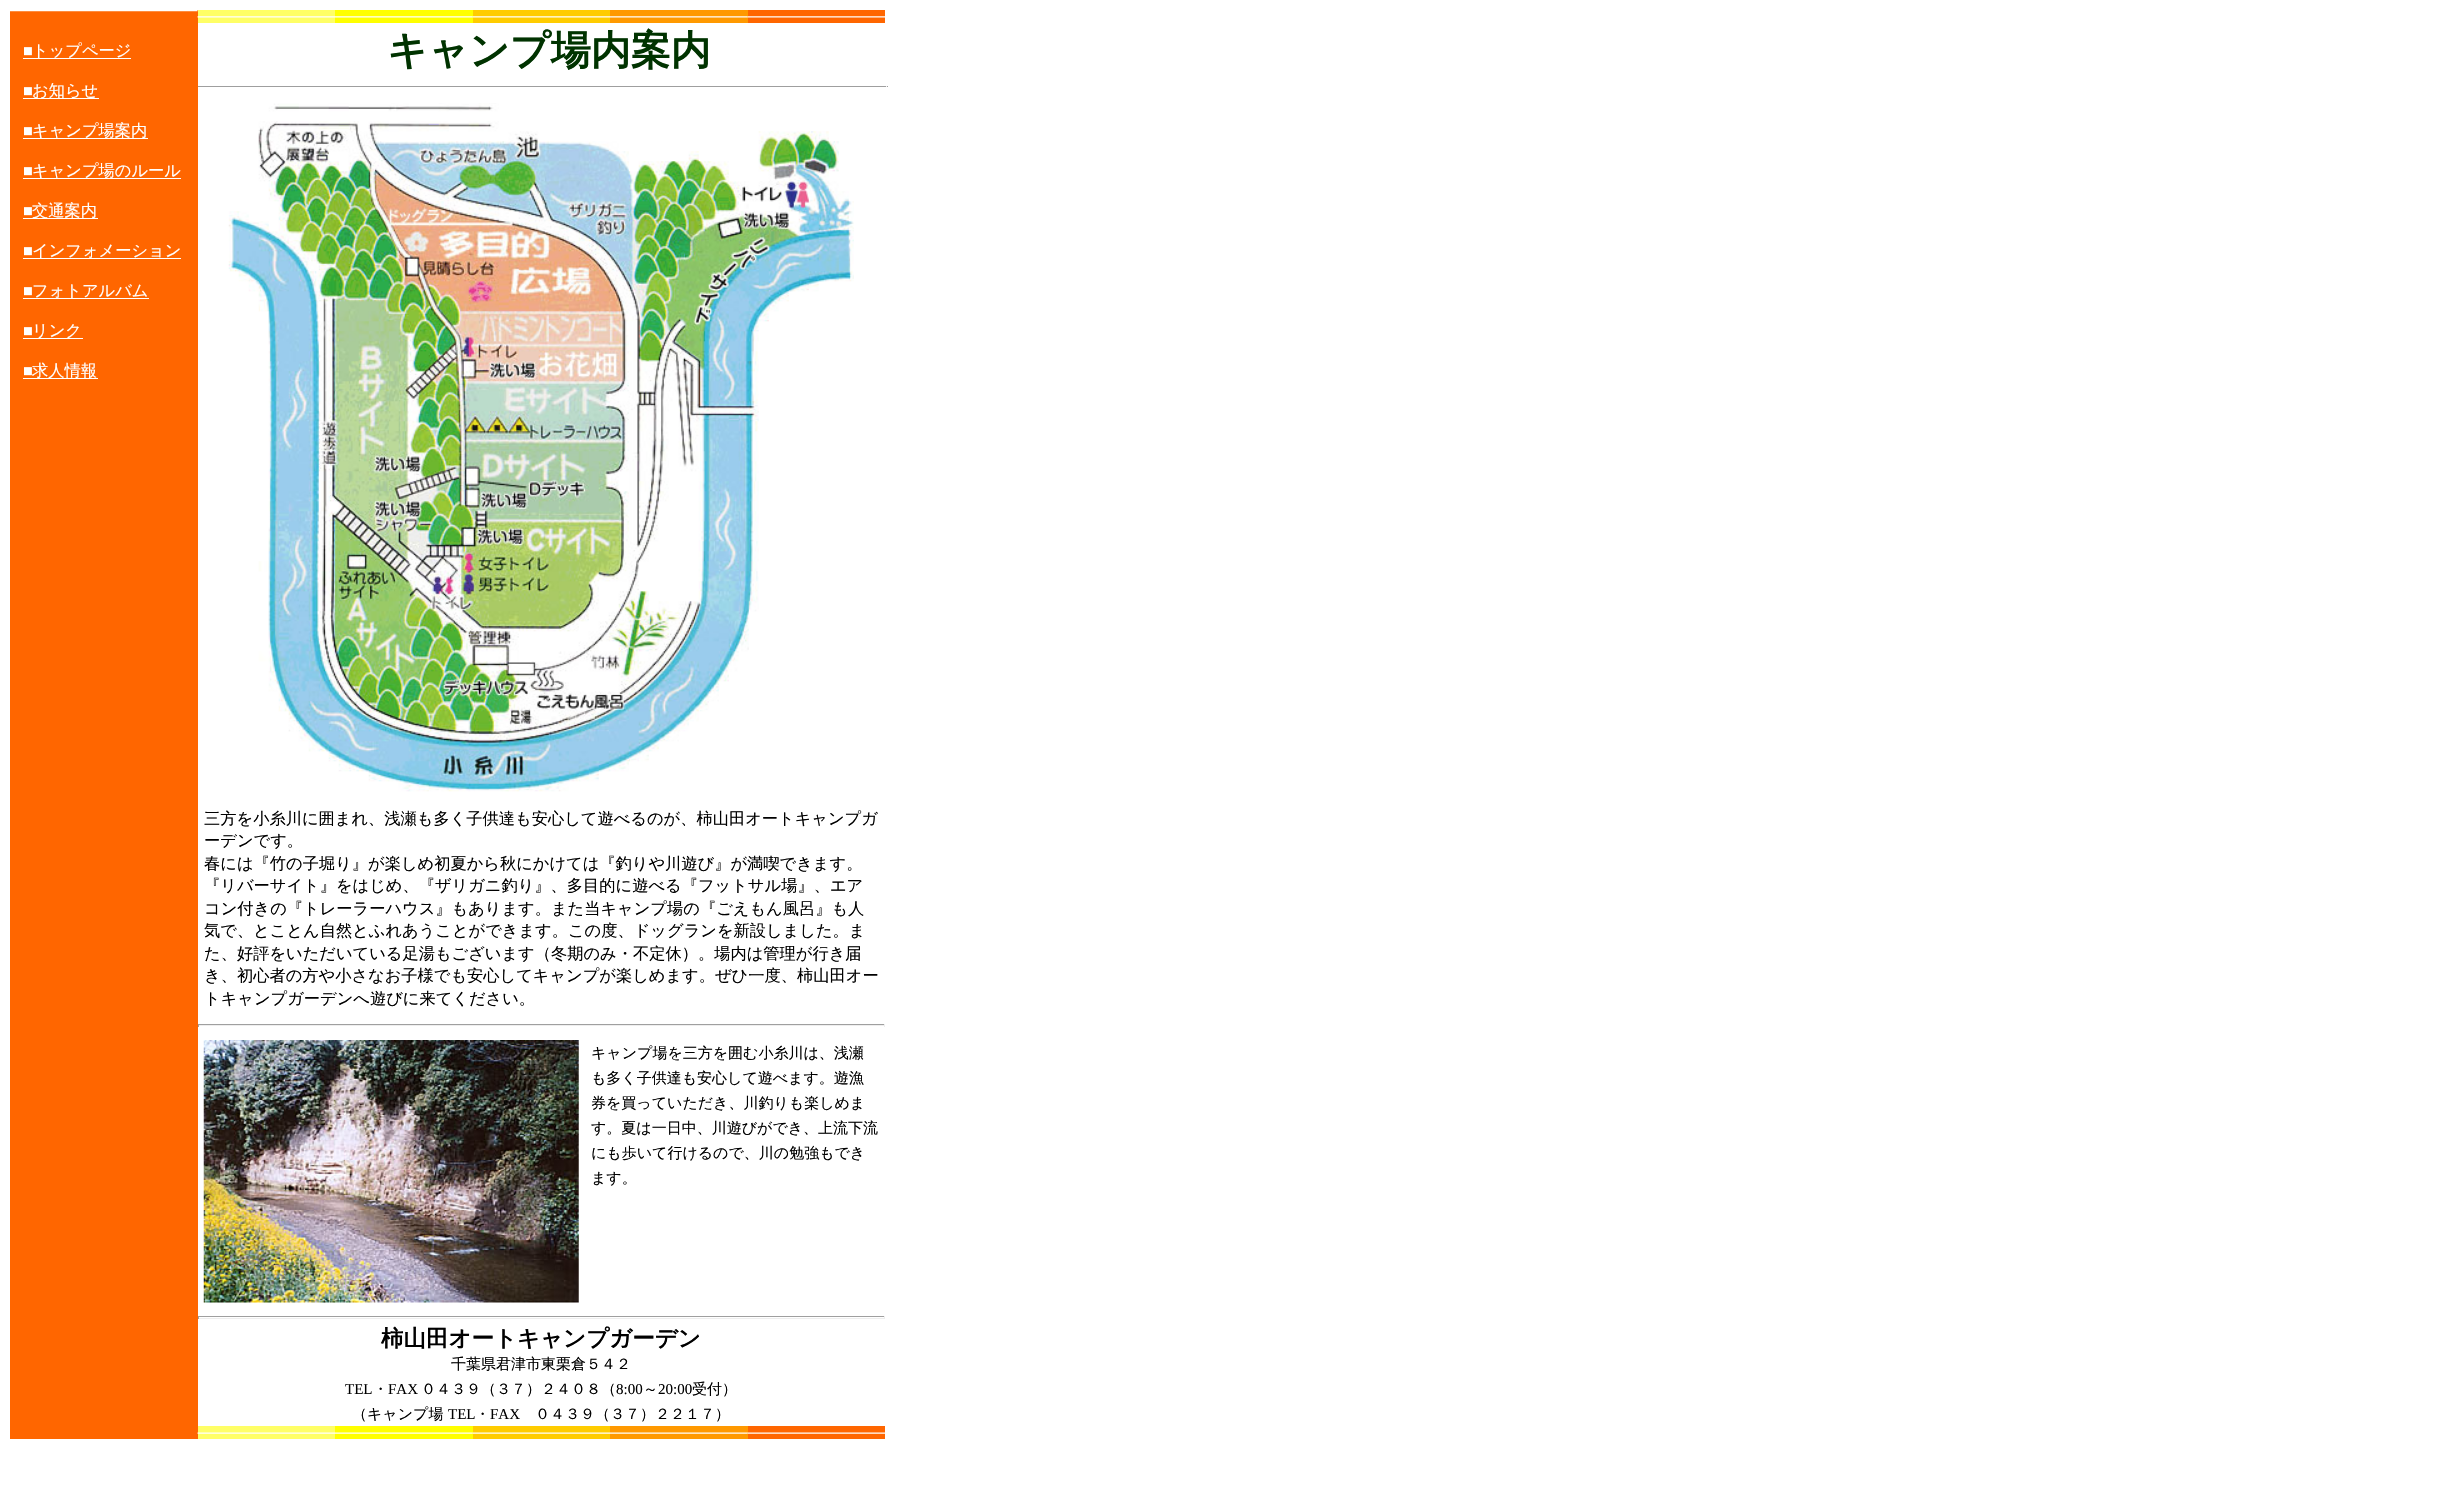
void draw(SkCanvas* canvas) {
  SkPaint paint;
  paint.setAntiAlias(true);
  auto face = [&](const char* family, int weight, float size, bool italic = false) {
    SkFontStyle style(weight, SkFontStyle::kNormal_Width,
      italic ? SkFontStyle::kItalic_Slant : SkFontStyle::kUpright_Slant);
    SkFont result(fontMgr->matchFamilyStyle(family, style), size);
    result.setSubpixel(true);
    return result;
  };
  auto paste = [&](const char* path, float x, float y, float w, float h) {
    auto image = SkImages::DeferredFromEncodedData(SkData::MakeFromFileName(path));
    canvas->drawImageRect(image, SkRect::MakeXYWH(x, y, w, h), SkSamplingOptions());
  };
  canvas->clear(0xffffffff);
  paint.setColor(0xffff6600);
  canvas->drawRect(SkRect::MakeXYWH(10, 10, 188, 1429), paint);
  paste("img/1.png", 10, 10, 188, 2);
  {
    const struct { float x, y, w, h; SkColor color; } items[] = {
      {23, 58, 108, 1, 0xffffffff},
      {23, 98, 76, 1, 0xffffffff},
      {23, 138, 125, 1, 0xffffffff},
      {23, 178, 158, 1, 0xffffffff},
      {23, 218, 75, 1, 0xffffffff},
      {23, 258, 158, 1, 0xffffffff},
      {23, 298, 126, 1, 0xffffffff},
      {23, 338, 60, 1, 0xffffffff},
      {23, 378, 75, 1, 0xffffffff},
      {748, 10, 137, 13, 0xffff6600},
      {198, 10, 137, 13, 0xffffff66},
    };
    for (auto [x, y, w, h, color] : items) {
      paint.setColor(color);
      canvas->drawRect(SkRect::MakeXYWH(x, y, w, h), paint);
    }
  }
  paste("img/2.png", 197, 16, 138, 2);
  paint.setColor(0xffffff00);
  canvas->drawRect(SkRect::MakeXYWH(335, 10, 138, 13), paint);
  paste("img/3.png", 335, 16, 138, 2);
  paint.setColor(0xffffcc00);
  canvas->drawRect(SkRect::MakeXYWH(473, 10, 137, 13), paint);
  paste("img/4.png", 472, 16, 138, 2);
  paint.setColor(0xffff9900);
  canvas->drawRect(SkRect::MakeXYWH(610, 10, 138, 13), paint);
  paste("img/5.png", 610, 16, 138, 2);
  paste("img/6.png", 747, 16, 138, 2);
  paint.setColor(0xff9f9f9f);
  canvas->drawRect(SkRect::MakeXYWH(198, 86, 690, 1), paint);
  paint.setColor(0xffeeeeee);
  canvas->drawRect(SkRect::MakeXYWH(886, 86, 1, 1), paint);
  paste("img/7.png", 228, 103, 626, 689);
  {
    const struct { float x, y, w, h; SkColor color; } items[] = {
      {198, 1024, 687, 1, 0xff9f9f9f},
      {884, 1024, 1, 3, 0xffeeeeee},
      {198, 1025, 687, 1, 0xffeeeeee},
      {198, 1024, 1, 3, 0xff9f9f9f},
    };
    for (auto [x, y, w, h, color] : items) {
      paint.setColor(color);
      canvas->drawRect(SkRect::MakeXYWH(x, y, w, h), paint);
    }
  }
  paste("img/8.png", 203, 1040, 376, 263);
  {
    const struct { float x, y, w, h; SkColor color; } items[] = {
      {198, 1316, 687, 1, 0xff9f9f9f},
      {884, 1316, 1, 3, 0xffeeeeee},
      {198, 1318, 687, 1, 0xffeeeeee},
      {198, 1316, 1, 3, 0xff9f9f9f},
      {748, 1426, 137, 13, 0xffff6600},
      {198, 1426, 137, 13, 0xffffff66},
    };
    for (auto [x, y, w, h, color] : items) {
      paint.setColor(color);
      canvas->drawRect(SkRect::MakeXYWH(x, y, w, h), paint);
    }
  }
  paste("img/9.png", 197, 1432, 138, 2);
  paint.setColor(0xffffff00);
  canvas->drawRect(SkRect::MakeXYWH(335, 1426, 138, 13), paint);
  paste("img/10.png", 335, 1432, 138, 2);
  paint.setColor(0xffffcc00);
  canvas->drawRect(SkRect::MakeXYWH(473, 1426, 137, 13), paint);
  paste("img/11.png", 472, 1432, 138, 2);
  paint.setColor(0xffff9900);
  canvas->drawRect(SkRect::MakeXYWH(610, 1426, 138, 13), paint);
  paste("img/12.png", 610, 1432, 138, 2);
  paste("img/13.png", 747, 1432, 138, 2);
  auto f0 = face("Liberation Serif", 400, 16.25f);
  paint.setColor(0xffffffff);
  canvas->drawString("■", 23, 56, f0, paint);
  auto f1 = face("WenQuanYi Zen Hei", 500, 16.25f);
  canvas->drawString("トップページ", 32, 56, f1, paint);
  canvas->drawString("■", 23, 96, f0, paint);
  canvas->drawString("お知らせ", 32, 96, f1, paint);
  canvas->drawString("■", 23, 136, f0, paint);
  canvas->drawString("キャンプ場案内", 32, 136, f1, paint);
  canvas->drawString("■", 23, 176, f0, paint);
  canvas->drawString("キャンプ場のルール", 32, 176, f1, paint);
  canvas->drawString("■", 23, 216, f0, paint);
  canvas->drawString("交通案内", 32, 216, f1, paint);
  canvas->drawString("■", 23, 256, f0, paint);
  canvas->drawString("インフォメーション", 32, 256, f1, paint);
  canvas->drawString("■", 23, 296, f0, paint);
  canvas->drawString("フォトアルバム", 32, 296, f1, paint);
  canvas->drawString("■", 23, 336, f0, paint);
  canvas->drawString("リンク", 32, 336, f1, paint);
  canvas->drawString("■", 23, 376, f0, paint);
  canvas->drawString("求人情報", 32, 376, f1, paint);
  auto f2 = face("WenQuanYi Zen Hei", 700, 40);
  paint.setColor(0xff003300);
  canvas->drawString("キャンプ場内案内", 387, 64, f2, paint);
  paint.setColor(0xff000000);
  {
    const struct { const char* s; float x, y; } items[] = {
      {"三方を小糸川に囲まれ、浅瀬も多く子供達も安心して遊べるのが、柿山田オートキャンプガ", 204, 824},
      {"ーデンです。", 204, 846},
      {"春には『竹の子堀り』が楽しめ初夏から秋にかけては『釣りや川遊び』が満喫できます。", 204, 869},
      {"『リバーサイト』をはじめ、『ザリガニ釣り』、多目的に遊べる『フットサル場』、エア", 204, 891},
      {"コン付きの『トレーラーハウス』もあります。また当キャンプ場の『ごえもん風呂』も人", 204, 914},
      {"気で、とことん自然とふれあうことができます。この度、ドッグランを新設しました。ま", 204, 936},
      {"た、好評をいただいている足湯もございます（冬期のみ・不定休）。場内は管理が行き届", 204, 959},
      {"き、初心者の方や小さなお子様でも安心してキャンプが楽しめます。ぜひ一度、柿山田オー", 204, 981},
      {"トキャンプガーデンへ遊びに来てください。", 204, 1004},
    };
    for (auto [s, x, y] : items) {
      canvas->drawString(s, x, y, f1, paint);
    }
  }
  auto f3 = face("WenQuanYi Zen Hei", 500, 15);
  {
    const struct { const char* s; float x, y; } items[] = {
      {"キャンプ場を三方を囲む小糸川は、浅瀬", 591, 1058},
      {"も多く子供達も安心して遊べます。遊漁", 591, 1083},
      {"券を買っていただき、川釣りも楽しめま", 591, 1108},
      {"す。夏は一日中、川遊びができ、上流下流", 591, 1133},
      {"にも歩いて行けるので、川の勉強もでき", 591, 1158},
      {"ます。", 591, 1183},
    };
    for (auto [s, x, y] : items) {
      canvas->drawString(s, x, y, f3, paint);
    }
  }
  auto f4 = face("WenQuanYi Zen Hei", 700, 22.5f);
  canvas->drawString("柿山田オートキャンプガーデン", 381, 1346, f4, paint);
  canvas->drawString("千葉県君津市東栗倉５４２", 451, 1369, f3, paint);
  auto f5 = face("Liberation Serif", 400, 15);
  canvas->drawString("TEL", 345, 1394, f5, paint);
  canvas->drawString("・", 373, 1394, f3, paint);
  canvas->drawString("FAX", 388, 1394, f5, paint);
  canvas->drawString("０４３９（３７）２４０８（", 421, 1394, f3, paint);
  canvas->drawString("8:00", 616, 1394, f5, paint);
  canvas->drawString("～", 643, 1394, f3, paint);
  canvas->drawString("20:00", 658, 1394, f5, paint);
  canvas->drawString("受付）", 692, 1394, f3, paint);
  canvas->drawString("（キャンプ場", 352, 1419, f3, paint);
  canvas->drawString("TEL", 448, 1419, f5, paint);
  canvas->drawString("・", 475, 1419, f3, paint);
  canvas->drawString("FAX", 490, 1419, f5, paint);
  canvas->drawString("０４３９（３７）２２１７）", 535, 1419, f3, paint);
}
